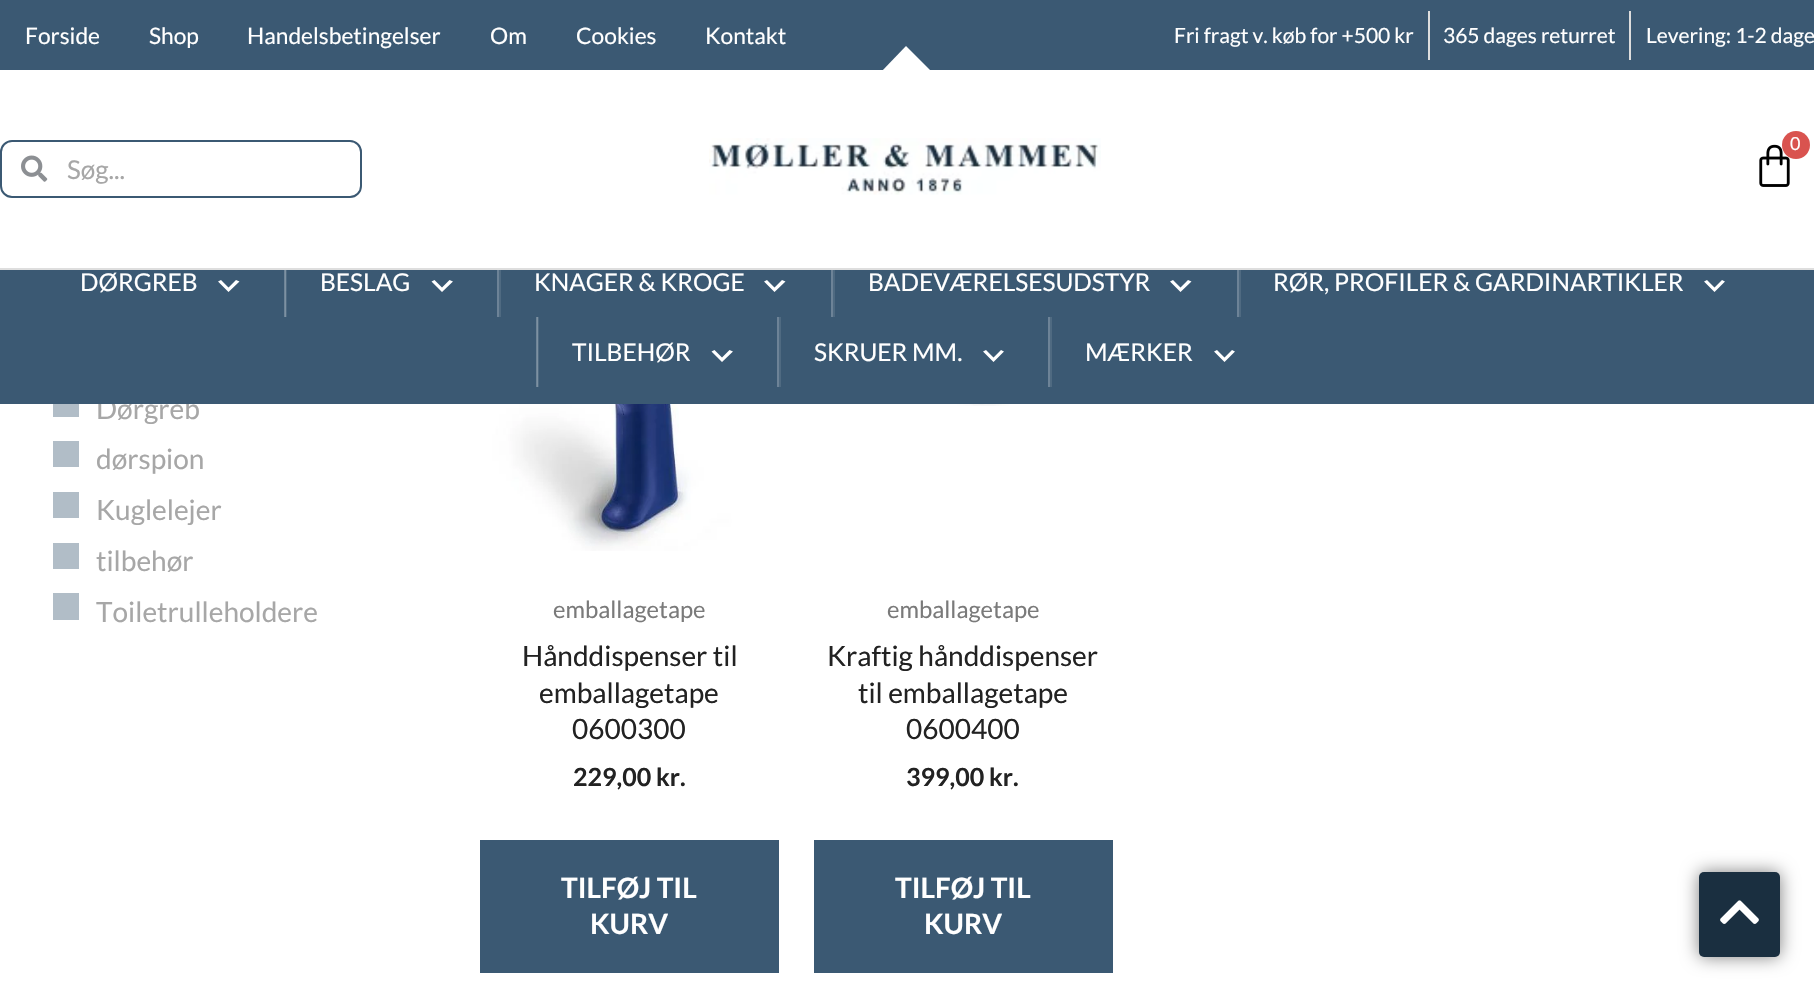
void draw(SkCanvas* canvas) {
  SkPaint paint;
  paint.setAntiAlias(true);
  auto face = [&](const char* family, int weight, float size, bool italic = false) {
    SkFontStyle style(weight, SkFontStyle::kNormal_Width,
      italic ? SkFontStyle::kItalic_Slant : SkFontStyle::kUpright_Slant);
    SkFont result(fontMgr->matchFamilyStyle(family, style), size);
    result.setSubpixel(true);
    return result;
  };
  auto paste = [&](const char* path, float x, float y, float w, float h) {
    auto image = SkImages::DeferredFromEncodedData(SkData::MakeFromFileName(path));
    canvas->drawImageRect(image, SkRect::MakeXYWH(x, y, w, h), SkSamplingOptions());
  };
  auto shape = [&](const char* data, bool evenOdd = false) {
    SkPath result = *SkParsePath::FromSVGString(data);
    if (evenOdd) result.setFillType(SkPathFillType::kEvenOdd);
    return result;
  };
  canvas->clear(0xffffffff);
  {
    const struct { float x, y, w, h; SkColor color; } items[] = {
      {0, 0, 1814, 70, 0xff3b5973},
      {1428, 11, 2, 49, 0xffdddddd},
      {1629, 11, 2, 49, 0xffdddddd},
    };
    for (auto [x, y, w, h, color] : items) {
      paint.setColor(color);
      canvas->drawRect(SkRect::MakeXYWH(x, y, w, h), paint);
    }
  }
  paint.setColor(0xffffffff);
  canvas->drawPath(shape("M906 46L932 72H881Z"), paint);
  paint.setColor(0xffdedede);
  canvas->drawRect(SkRect::MakeXYWH(0, 268, 1814, 2), paint);
  paint.setStroke(true);
  paint.setStrokeWidth(2);
  paint.setColor(0xff3b5973);
  canvas->drawRoundRect(SkRect::MakeXYWH(1, 141, 360, 56), 11, 11, paint);
  paste("img/1.png", 21, 155, 27, 27);
  paste("img/2.png", 709, 138, 392, 57);
  paste("img/3.png", 1759, 144, 31, 43);
  paint.setStroke(false);
  paint.setColor(0xffd9534f);
  canvas->drawCircle(1796, 145, 14, paint);
  {
    const struct { float x, y, w, h; SkColor color; } items[] = {
      {53, 404, 26, 13, 0xffb1bdc7},
      {53, 441, 26, 26, 0xffb1bdc7},
      {53, 492, 26, 26, 0xffb1bdc7},
      {53, 543, 26, 26, 0xffb1bdc7},
      {53, 593, 26, 27, 0xffb1bdc7},
    };
    for (auto [x, y, w, h, color] : items) {
      paint.setColor(color);
      canvas->drawRect(SkRect::MakeXYWH(x, y, w, h), paint);
    }
  }
  paste("img/4.png", 480, 404, 299, 147);
  paint.setColor(0xff3b5973);
  canvas->drawRect(SkRect::MakeXYWH(480, 840, 299, 133), paint);
  paste("img/5.png", 814, 404, 299, 2);
  canvas->drawRect(SkRect::MakeXYWH(814, 840, 299, 133), paint);
  paint.setColor(0x80000000);
  paint.setMaskFilter(SkMaskFilter::MakeBlur(kNormal_SkBlurStyle, 9));
  canvas->drawRoundRect(SkRect::MakeXYWH(1699, 872, 81, 85), 5, 5, paint);
  paint.setMaskFilter(nullptr);
  paint.setColor(0xff1a2f40);
  canvas->drawRoundRect(SkRect::MakeXYWH(1699, 872, 81, 85), 5, 5, paint);
  paste("img/6.png", 1720, 900, 39, 24);
  auto f0 = face("Lato", 400, 22.75f);
  paint.setColor(0xffffffff);
  {
    const struct { const char* s; float x, y; } items[] = {
      {"Forside", 25, 44},
      {"Shop", 149, 44},
      {"Handelsbetingelser", 247, 44},
      {"Om", 490, 44},
      {"Cookies", 576, 44},
      {"Kontakt", 705, 44},
    };
    for (auto [s, x, y] : items) {
      canvas->drawString(s, x, y, f0, paint);
    }
  }
  auto f1 = face("Lato", 400, 21);
  {
    const struct { const char* s; float x, y; } items[] = {
      {"Fri fragt v. køb for +500 kr", 1174, 43},
      {"365 dages returret", 1443, 43},
      {"Levering: 1-2 dage", 1646, 43},
    };
    for (auto [s, x, y] : items) {
      canvas->drawString(s, x, y, f1, paint);
    }
  }
  auto f2 = face("Lato", 400, 26);
  paint.setColor(0xffa7a7a7);
  canvas->drawString("Søg...", 67, 179, f2, paint);
  auto f3 = face("Lato", 400, 18);
  paint.setColor(0xffffffff);
  canvas->drawString("0", 1790, 150, f3, paint);
  auto f4 = face("Lato", 400, 28);
  paint.setColor(0xffa7a7a7);
  canvas->drawString("Dørgreb", 96, 419, f4, paint);
  paint.setColor(0xff3b5973);
  canvas->drawRect(SkRect::MakeXYWH(0, 270, 1814, 134), paint);
  paint.setColor(0xffffffff);
  canvas->drawPath(shape("M1217 350L1224.5 357.5L1232 350L1235 351.5L1224.5 362L1214 351.5Z"), paint);
  auto f5 = face("Lato", 400, 24.5f);
  canvas->drawString("MÆRKER", 1085, 361, f5, paint);
  canvas->drawPath(shape("M986 350L993.5 357.5L1001 350L1004 351.5L993.5 362L983 351.5Z"), paint);
  canvas->drawString("SKRUER MM.", 814, 361, f5, paint);
  canvas->drawPath(shape("M714.5 350L722 357.5L729.5 350L733 351.5L722 362L711.5 351.5Z"), paint);
  canvas->drawString("TILBEHØR", 572, 361, f5, paint);
  canvas->drawPath(shape("M1707 280L1714.5 287.5L1722 280L1725 281.5L1714.5 292L1704 281.5Z"), paint);
  canvas->drawString("RØR, PROFILER & GARDINARTIKLER", 1273, 291, f5, paint);
  canvas->drawPath(shape("M1173 280L1180.5 287.5L1188 280L1191.5 281.5L1180.5 292L1170 281.5Z"), paint);
  canvas->drawString("BADEVÆRELSESUDSTYR", 868, 291, f5, paint);
  canvas->drawPath(shape("M767 280L774.5 287.5L782 280L785.5 281.5L774.5 292L764 281.5Z"), paint);
  canvas->drawString("KNAGER & KROGE", 534, 291, f5, paint);
  canvas->drawPath(shape("M434.5 280L442 287.5L449.5 280L453 281.5L442 292L431.5 281.5Z"), paint);
  canvas->drawString("BESLAG", 320, 291, f5, paint);
  canvas->drawPath(shape("M221 280L228.5 287.5L236 280L239.5 281.5L228.5 292L218 281.5Z"), paint);
  canvas->drawString("DØRGREB", 80, 291, f5, paint);
  {
    const struct { float x, y, w, h; SkColor color; } items[] = {
      {1048, 317, 2, 70, 0xff6d8397},
      {1050, 317, 2, 70, 0xff4f6a81},
      {777, 317, 2, 70, 0xff6d8397},
      {779, 317, 2, 70, 0xff4f6a81},
      {537, 317, 2, 70, 0xff4f6a81},
      {536, 317, 2, 70, 0x42ffffff},
      {1237, 270, 2, 47, 0xff6d8397},
      {1239, 270, 2, 47, 0xff4f6a81},
      {831, 270, 2, 47, 0xff6d8397},
      {833, 270, 2, 47, 0xff4f6a81},
      {497, 270, 2, 47, 0xff6d8397},
      {499, 270, 2, 47, 0xff4f6a81},
      {285, 270, 1, 47, 0xff7d91a2},
      {286, 270, 1, 47, 0xff4f6a81},
      {284, 270, 1, 47, 0xff6e8497},
    };
    for (auto [x, y, w, h, color] : items) {
      paint.setColor(color);
      canvas->drawRect(SkRect::MakeXYWH(x, y, w, h), paint);
    }
  }
  paint.setColor(0xffa7a7a7);
  {
    const struct { const char* s; float x, y; } items[] = {
      {"dørspion", 96, 469},
      {"Kuglelejer", 96, 520},
      {"tilbehør", 96, 571},
      {"Toiletrulleholdere", 96, 622},
    };
    for (auto [s, x, y] : items) {
      canvas->drawString(s, x, y, f4, paint);
    }
  }
  auto f6 = face("Lato", 400, 23.75f);
  paint.setColor(0xff7a7a7a);
  canvas->drawString("emballagetape", 553, 618, f6, paint);
  paint.setColor(0xff222222);
  {
    const struct { const char* s; float x, y; } items[] = {
      {"Hånddispenser til", 522, 666},
      {"emballagetape", 539, 703},
      {"0600300", 572, 739},
    };
    for (auto [s, x, y] : items) {
      canvas->drawString(s, x, y, f4, paint);
    }
  }
  auto f7 = face("Lato", 700, 25);
  canvas->drawString("229,00 kr.", 573, 786, f7, paint);
  auto f8 = face("Lato", 700, 28);
  paint.setColor(0xffffffff);
  canvas->drawString("TILFØJ TIL", 561, 898, f8, paint);
  canvas->drawString("KURV", 590, 934, f8, paint);
  paint.setColor(0xff7a7a7a);
  canvas->drawString("emballagetape", 887, 618, f6, paint);
  paint.setColor(0xff222222);
  {
    const struct { const char* s; float x, y; } items[] = {
      {"Kraftig hånddispenser", 827, 666},
      {"til emballagetape", 858, 703},
      {"0600400", 906, 739},
    };
    for (auto [s, x, y] : items) {
      canvas->drawString(s, x, y, f4, paint);
    }
  }
  canvas->drawString("399,00 kr.", 906, 786, f7, paint);
  paint.setColor(0xffffffff);
  canvas->drawString("TILFØJ TIL", 895, 898, f8, paint);
  canvas->drawString("KURV", 924, 934, f8, paint);
}
